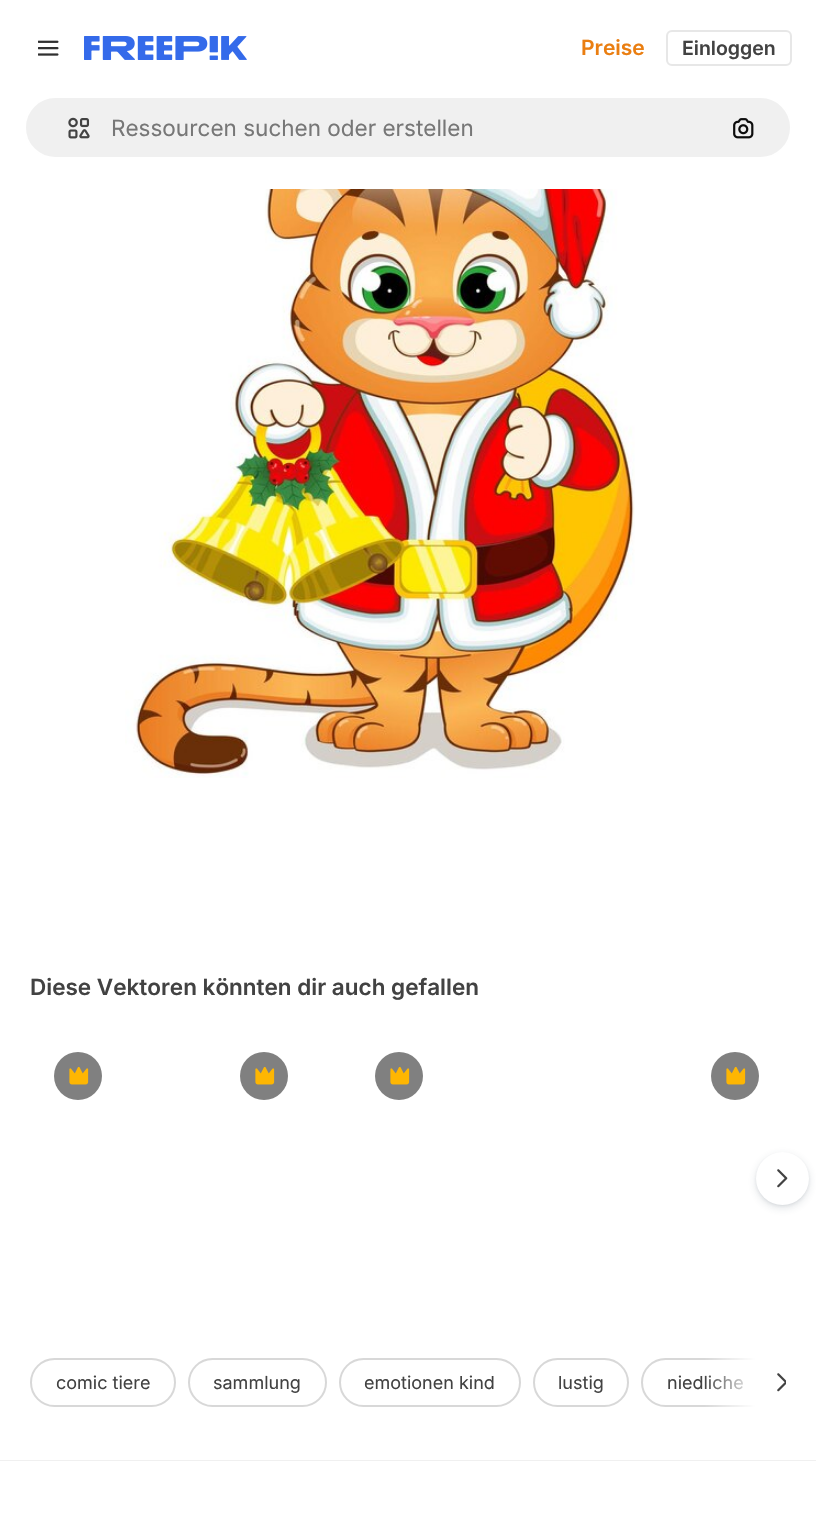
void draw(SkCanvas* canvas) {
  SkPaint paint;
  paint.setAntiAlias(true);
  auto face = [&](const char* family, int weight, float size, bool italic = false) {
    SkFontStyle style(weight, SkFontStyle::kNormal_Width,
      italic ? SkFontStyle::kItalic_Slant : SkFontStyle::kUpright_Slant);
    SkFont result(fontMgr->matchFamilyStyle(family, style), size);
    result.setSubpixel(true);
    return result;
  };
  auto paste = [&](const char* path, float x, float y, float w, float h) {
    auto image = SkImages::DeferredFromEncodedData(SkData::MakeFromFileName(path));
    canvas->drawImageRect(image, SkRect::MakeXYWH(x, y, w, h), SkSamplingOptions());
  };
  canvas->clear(0xffffffff);
  paste("img/1.png", 38, 40, 21, 16);
  paste("img/2.png", 84, 36, 163, 24);
  paint.setStroke(true);
  paint.setStrokeWidth(2);
  paint.setColor(0xffe7e7e7);
  canvas->drawRoundRect(SkRect::MakeXYWH(667, 31, 124, 34), 5, 5, paint);
  paint.setStroke(false);
  paint.setColor(0xfff0f0f0);
  canvas->drawRoundRect(SkRect::MakeXYWH(25, 97, 766, 61), 30.5f, 30.5f, paint);
  paint.setStroke(true);
  paint.setColor(0xffffffff);
  canvas->drawRoundRect(SkRect::MakeXYWH(25, 97, 766, 61), 30.5f, 30.5f, paint);
  paste("img/3.png", 68, 117, 22, 22);
  paste("img/4.png", 733, 118, 21, 21);
  paste("img/5.png", 125, 189, 510, 589);
  paint.setStroke(false);
  paint.setColor(0xff808080);
  canvas->drawCircle(78, 1076, 24, paint);
  paste("img/6.png", 69, 1067, 20, 18);
  canvas->drawCircle(264, 1076, 24, paint);
  paste("img/6.png", 255, 1067, 20, 18);
  canvas->drawCircle(399, 1076, 24, paint);
  paste("img/6.png", 390, 1067, 20, 18);
  canvas->drawCircle(735, 1076, 24, paint);
  paste("img/6.png", 726, 1067, 20, 18);
  paint.setColor(0x26374957);
  paint.setMaskFilter(SkMaskFilter::MakeBlur(kNormal_SkBlurStyle, 4));
  canvas->drawRoundRect(SkRect::MakeXYWH(756, 1155, 53, 53), 26.5f, 26.5f, paint);
  paint.setMaskFilter(nullptr);
  paint.setColor(0x1a374957);
  paint.setMaskFilter(SkMaskFilter::MakeBlur(kNormal_SkBlurStyle, 1.5f));
  canvas->drawRoundRect(SkRect::MakeXYWH(756, 1154, 53, 52), 26, 26, paint);
  paint.setMaskFilter(nullptr);
  paint.setColor(0xffffffff);
  canvas->drawCircle(782.5f, 1178.5f, 26.5f, paint);
  paste("img/7.png", 777, 1169, 11, 19);
  paint.setStroke(true);
  paint.setColor(0xffd8d8d8);
  canvas->drawRoundRect(SkRect::MakeXYWH(31, 1359, 144, 47), 23.5f, 23.5f, paint);
  canvas->drawRoundRect(SkRect::MakeXYWH(189, 1359, 137, 47), 23.5f, 23.5f, paint);
  canvas->drawRoundRect(SkRect::MakeXYWH(340, 1359, 180, 47), 23.5f, 23.5f, paint);
  canvas->drawRoundRect(SkRect::MakeXYWH(534, 1359, 94, 47), 23.5f, 23.5f, paint);
  canvas->save();
  canvas->clipRect(SkRect::MakeXYWH(30, 1358, 756, 49));
  canvas->drawRoundRect(SkRect::MakeXYWH(642, 1359, 169, 47), 23.5f, 23.5f, paint);
  canvas->restore();
  paint.setStroke(false);
  paint.setColor(0xffffffff);
  canvas->drawRect(SkRect::MakeXYWH(756, 1358, 30, 49), paint);
  paste("img/8.png", 777, 1373, 9, 19);
  paint.setColor(0xfff0f0f0);
  canvas->drawRect(SkRect::MakeXYWH(0, 1460, 816, 1), paint);
  auto f0 = face("Inter", 600, 21);
  paint.setColor(0xffea7e11);
  canvas->drawString("Preise", 581, 55, f0, paint);
  auto f1 = face("Inter", 600, 19.5f);
  paint.setColor(0xff424242);
  canvas->drawString("Einloggen", 682, 55, f1, paint);
  auto f2 = face("Inter", 400, 22.5f);
  paint.setColor(0xff777777);
  canvas->drawString("Ressourcen suchen oder erstellen", 111, 136, f2, paint);
  auto f3 = face("Inter", 600, 22.5f);
  paint.setColor(0xff424242);
  canvas->drawString("Diese Vektoren könnten dir auch gefallen", 30, 995, f3, paint);
  auto f4 = face("Inter", 400, 18);
  {
    const struct { const char* s; float x, y; } items[] = {
      {"comic tiere", 56, 1389},
      {"sammlung", 213, 1389},
      {"emotionen kind", 364, 1389},
      {"lustig", 558, 1389},
      {"niedliche", 667, 1389},
    };
    for (auto [s, x, y] : items) {
      canvas->drawString(s, x, y, f4, paint);
    }
  }
  {
    const SkColor colors[] = {0xffffffff, 0x00ffffff};
    const float stops[] = {0, 1};
    const SkPoint ends[] = {{756, 1382}, {704, 1382}};
    paint.setShader(SkGradientShader::MakeLinear(ends, colors, stops, 2, SkTileMode::kClamp));
    paint.setAlpha(255);
  }
  canvas->drawRect(SkRect::MakeXYWH(705, 1358, 51, 49), paint);
}
